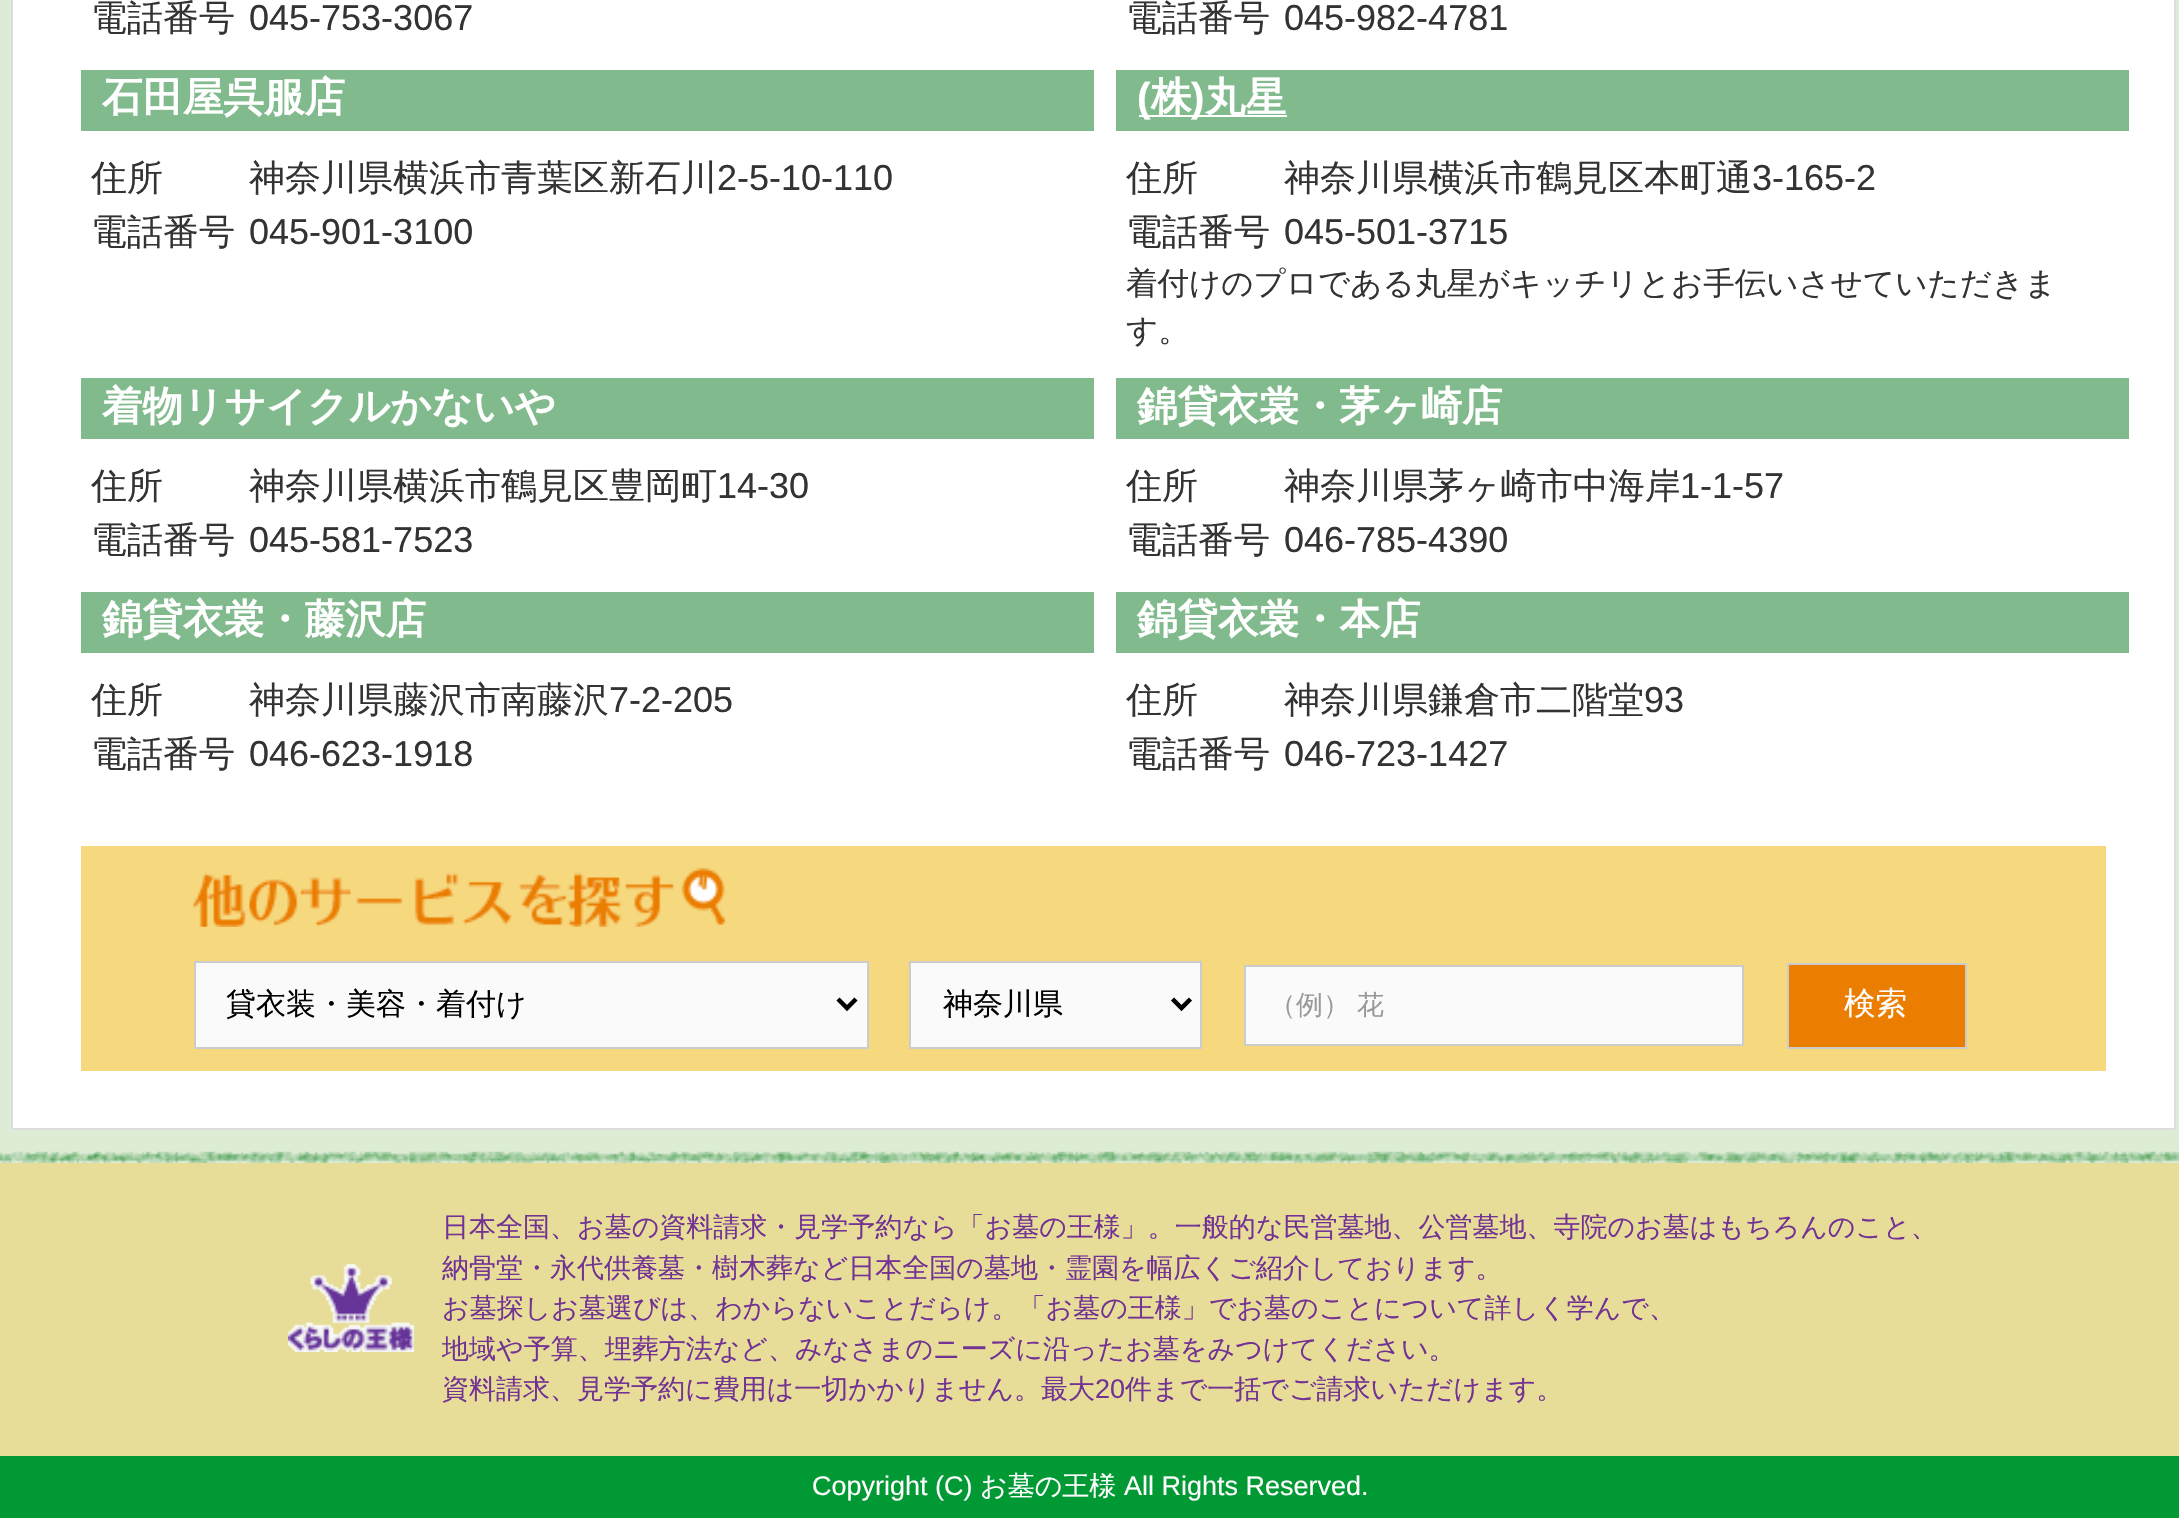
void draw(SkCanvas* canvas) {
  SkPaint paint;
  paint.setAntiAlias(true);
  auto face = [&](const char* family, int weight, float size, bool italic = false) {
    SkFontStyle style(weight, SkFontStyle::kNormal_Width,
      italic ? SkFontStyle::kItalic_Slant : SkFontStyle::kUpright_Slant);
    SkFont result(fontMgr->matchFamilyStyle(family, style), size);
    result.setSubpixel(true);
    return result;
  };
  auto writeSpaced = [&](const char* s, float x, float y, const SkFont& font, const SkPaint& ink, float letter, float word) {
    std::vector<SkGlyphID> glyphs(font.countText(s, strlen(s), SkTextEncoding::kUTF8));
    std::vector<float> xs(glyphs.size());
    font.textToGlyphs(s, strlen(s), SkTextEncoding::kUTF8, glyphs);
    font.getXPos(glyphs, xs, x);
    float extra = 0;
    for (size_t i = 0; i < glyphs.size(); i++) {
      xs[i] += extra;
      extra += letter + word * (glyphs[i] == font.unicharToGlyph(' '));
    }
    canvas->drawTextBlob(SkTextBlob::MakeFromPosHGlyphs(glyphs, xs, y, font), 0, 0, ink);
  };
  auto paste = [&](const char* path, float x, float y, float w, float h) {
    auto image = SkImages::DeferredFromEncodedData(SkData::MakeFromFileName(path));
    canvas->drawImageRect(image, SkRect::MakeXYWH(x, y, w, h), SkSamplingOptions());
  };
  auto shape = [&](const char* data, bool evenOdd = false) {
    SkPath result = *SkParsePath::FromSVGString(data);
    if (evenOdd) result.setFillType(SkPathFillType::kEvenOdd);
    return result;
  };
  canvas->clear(0xffdcecd5);
  paint.setColor(0xffffffff);
  canvas->drawRoundRect(SkRect::MakeXYWH(12, -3, 2163, 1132), 1, 1, paint);
  paint.setStroke(true);
  paint.setStrokeWidth(2);
  paint.setColor(0xffdddddd);
  canvas->drawRoundRect(SkRect::MakeXYWH(12, -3, 2163, 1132), 1, 1, paint);
  paint.setStroke(false);
  {
    const struct { float x, y, w, h; SkColor color; } items[] = {
      {81, 70, 1013, 61, 0xff81bb8d},
      {1116, 70, 1013, 61, 0xff81bb8d},
      {1139, 115, 148, 2, 0xffffffff},
      {81, 378, 1013, 61, 0xff81bb8d},
      {1116, 378, 1013, 61, 0xff81bb8d},
      {81, 592, 1013, 61, 0xff81bb8d},
      {1116, 592, 1013, 61, 0xff81bb8d},
      {81, 846, 2025, 225, 0xfff6d97f},
    };
    for (auto [x, y, w, h, color] : items) {
      paint.setColor(color);
      canvas->drawRect(SkRect::MakeXYWH(x, y, w, h), paint);
    }
  }
  paste("img/1.png", 193, 868, 533, 59);
  paint.setColor(0xfffafafa);
  canvas->drawRect(SkRect::MakeXYWH(195, 962, 673, 86), paint);
  paint.setStroke(true);
  paint.setColor(0xffcccccc);
  canvas->drawRect(SkRect::MakeXYWH(195, 962, 673, 86), paint);
  paint.setStrokeWidth(4.5f);
  paint.setColor(0xff000000);
  canvas->drawPath(shape("M838 999L847 1008L856 999"), paint);
  paint.setStroke(false);
  paint.setColor(0xfffafafa);
  canvas->drawRect(SkRect::MakeXYWH(910, 962, 291, 86), paint);
  paint.setStroke(true);
  paint.setStrokeWidth(2);
  paint.setColor(0xffcccccc);
  canvas->drawRect(SkRect::MakeXYWH(910, 962, 291, 86), paint);
  paint.setStrokeWidth(4.5f);
  paint.setColor(0xff000000);
  canvas->drawPath(shape("M1172.5 999L1181.5 1008L1190.5 999"), paint);
  paint.setStroke(false);
  paint.setColor(0xfffafafa);
  canvas->drawRect(SkRect::MakeXYWH(1245, 966, 498, 79), paint);
  paint.setStroke(true);
  paint.setStrokeWidth(2);
  paint.setColor(0xffcccccc);
  canvas->drawRect(SkRect::MakeXYWH(1245, 966, 498, 79), paint);
  paint.setStroke(false);
  paint.setColor(0xffeb7d00);
  canvas->drawRect(SkRect::MakeXYWH(1788, 964, 178, 84), paint);
  paint.setStroke(true);
  paint.setColor(0xffcccccc);
  canvas->drawRect(SkRect::MakeXYWH(1788, 964, 178, 84), paint);
  paste("img/2.png", 0, 1151, 2179, 12);
  paint.setStroke(false);
  paint.setColor(0xffe7dd99);
  canvas->drawRect(SkRect::MakeXYWH(0, 1163, 2179, 293), paint);
  paste("img/3.png", 288, 1264, 126, 88);
  paint.setColor(0xff019934);
  canvas->drawRect(SkRect::MakeXYWH(0, 1456, 2179, 62), paint);
  auto f0 = face("WenQuanYi Zen Hei", 500, 36);
  paint.setColor(0xff333333);
  canvas->drawString("電話番号", 91, 30, f0, paint);
  auto f1 = face("Liberation Sans", 400, 36);
  canvas->drawString("045-753-3067", 249, 30, f1, paint);
  canvas->drawString("電話番号", 1126, 30, f0, paint);
  canvas->drawString("045-982-4781", 1284, 30, f1, paint);
  auto f2 = face("WenQuanYi Zen Hei", 700, 40.5f);
  paint.setColor(0xffffffff);
  canvas->drawString("石田屋呉服店", 102, 111, f2, paint);
  paint.setColor(0xff333333);
  canvas->drawString("住所", 91, 190, f0, paint);
  canvas->drawString("神奈川県横浜市青葉区新石川", 249, 190, f0, paint);
  canvas->drawString("2-5-10-110", 717, 190, f1, paint);
  canvas->drawString("電話番号", 91, 244, f0, paint);
  canvas->drawString("045-901-3100", 249, 244, f1, paint);
  auto f3 = face("Liberation Sans", 700, 40.5f);
  paint.setColor(0xffffffff);
  canvas->drawString("(", 1137, 111, f3, paint);
  canvas->drawString("株", 1151, 111, f2, paint);
  canvas->drawString(")", 1191, 111, f3, paint);
  canvas->drawString("丸星", 1205, 111, f2, paint);
  paint.setColor(0xff333333);
  canvas->drawString("住所", 1126, 190, f0, paint);
  canvas->drawString("神奈川県横浜市鶴見区本町通", 1284, 190, f0, paint);
  canvas->drawString("3-165-2", 1752, 190, f1, paint);
  canvas->drawString("電話番号", 1126, 244, f0, paint);
  canvas->drawString("045-501-3715", 1284, 244, f1, paint);
  auto f4 = face("WenQuanYi Zen Hei", 500, 31.5f);
  canvas->drawString("着付けのプロである丸星がキッチリとお手伝いさせていただきま", 1126, 294, f4, paint);
  canvas->drawString("す。", 1126, 341, f4, paint);
  paint.setColor(0xffffffff);
  canvas->drawString("着物リサイクルかないや", 102, 420, f2, paint);
  paint.setColor(0xff333333);
  canvas->drawString("住所", 91, 498, f0, paint);
  canvas->drawString("神奈川県横浜市鶴見区豊岡町", 249, 498, f0, paint);
  canvas->drawString("14-30", 717, 498, f1, paint);
  canvas->drawString("電話番号", 91, 552, f0, paint);
  canvas->drawString("045-581-7523", 249, 552, f1, paint);
  paint.setColor(0xffffffff);
  canvas->drawString("錦貸衣裳・茅ヶ崎店", 1137, 420, f2, paint);
  paint.setColor(0xff333333);
  canvas->drawString("住所", 1126, 498, f0, paint);
  canvas->drawString("神奈川県茅ヶ崎市中海岸", 1284, 498, f0, paint);
  canvas->drawString("1-1-57", 1680, 498, f1, paint);
  canvas->drawString("電話番号", 1126, 552, f0, paint);
  canvas->drawString("046-785-4390", 1284, 552, f1, paint);
  paint.setColor(0xffffffff);
  canvas->drawString("錦貸衣裳・藤沢店", 102, 633, f2, paint);
  paint.setColor(0xff333333);
  canvas->drawString("住所", 91, 712, f0, paint);
  canvas->drawString("神奈川県藤沢市南藤沢", 249, 712, f0, paint);
  canvas->drawString("7-2-205", 609, 712, f1, paint);
  canvas->drawString("電話番号", 91, 766, f0, paint);
  canvas->drawString("046-623-1918", 249, 766, f1, paint);
  paint.setColor(0xffffffff);
  canvas->drawString("錦貸衣裳・本店", 1137, 633, f2, paint);
  paint.setColor(0xff333333);
  canvas->drawString("住所", 1126, 712, f0, paint);
  canvas->drawString("神奈川県鎌倉市二階堂", 1284, 712, f0, paint);
  canvas->drawString("93", 1644, 712, f1, paint);
  canvas->drawString("電話番号", 1126, 766, f0, paint);
  canvas->drawString("046-723-1427", 1284, 766, f1, paint);
  auto f5 = face("WenQuanYi Zen Hei", 500, 30);
  paint.setColor(0xff000000);
  canvas->drawString("貸衣装・美容・着付け", 226, 1014, f5, paint);
  canvas->drawString("神奈川県", 943, 1014, f5, paint);
  auto f6 = face("WenQuanYi Zen Hei", 500, 27);
  paint.setColor(0xff999999);
  writeSpaced("（例） 花", 1269, 1014, f6, paint, 0, -1);
  paint.setColor(0xffffffff);
  canvas->drawString("検索", 1844, 1014, f4, paint);
  paint.setColor(0xff733393);
  {
    const struct { const char* s; float x, y; } items[] = {
      {"日本全国、お墓の資料請求・見学予約なら「お墓の王様」。一般的な民営墓地、公営墓地、寺院のお墓はもちろんのこと、", 442, 1236},
      {"納骨堂・永代供養墓・樹木葬など日本全国の墓地・霊園を幅広くご紹介しております。", 442, 1277},
      {"お墓探しお墓選びは、わからないことだらけ。「お墓の王様」でお墓のことについて詳しく学んで、", 442, 1317},
      {"地域や予算、埋葬方法など、みなさまのニーズに沿ったお墓をみつけてください。", 442, 1358},
      {"資料請求、見学予約に費用は一切かかりません。最大", 442, 1398},
    };
    for (auto [s, x, y] : items) {
      canvas->drawString(s, x, y, f6, paint);
    }
  }
  auto f7 = face("Liberation Sans", 400, 27);
  canvas->drawString("20", 1095, 1398, f7, paint);
  canvas->drawString("件まで一括でご請求いただけます。", 1125, 1398, f6, paint);
  paint.setColor(0xffffffff);
  canvas->drawString("Copyright (C)", 812, 1495, f7, paint);
  canvas->drawString("お墓の王様", 980, 1495, f6, paint);
  canvas->drawString("All Rights Reserved.", 1124, 1495, f7, paint);
}
